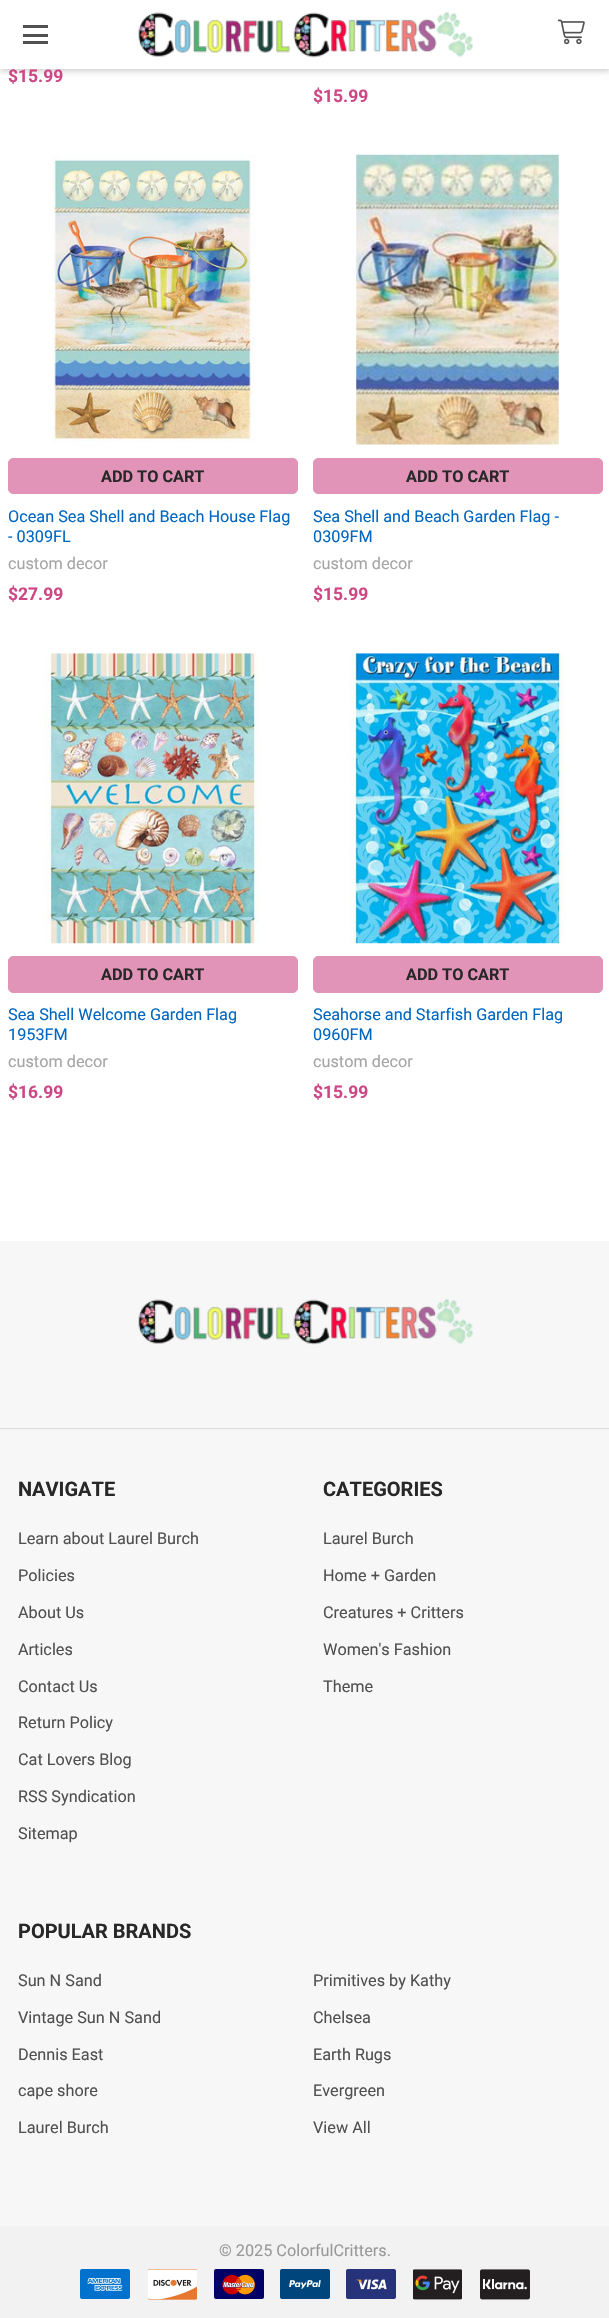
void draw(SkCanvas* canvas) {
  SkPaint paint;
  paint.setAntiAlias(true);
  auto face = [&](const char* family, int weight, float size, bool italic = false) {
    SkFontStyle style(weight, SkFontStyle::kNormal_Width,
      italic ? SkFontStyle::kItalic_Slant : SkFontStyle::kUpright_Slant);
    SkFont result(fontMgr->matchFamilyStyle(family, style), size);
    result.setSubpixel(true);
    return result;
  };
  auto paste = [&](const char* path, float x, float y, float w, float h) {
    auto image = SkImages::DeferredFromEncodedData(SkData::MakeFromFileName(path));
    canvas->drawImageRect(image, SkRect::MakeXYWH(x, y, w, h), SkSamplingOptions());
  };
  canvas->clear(0xffffffff);
  paint.setColor(0x33000000);
  paint.setMaskFilter(SkMaskFilter::MakeBlur(kNormal_SkBlurStyle, 3));
  canvas->drawRect(SkRect::MakeXYWH(0, 3, 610, 68), paint);
  paint.setMaskFilter(nullptr);
  paste("img/3.png", 51, 155, 205, 288);
  paint.setColor(0xffe194b7);
  canvas->drawRoundRect(SkRect::MakeXYWH(8.5f, 458.5f, 289, 35), 4.5f, 4.5f, paint);
  paint.setStroke(true);
  paint.setStrokeWidth(1);
  canvas->drawRoundRect(SkRect::MakeXYWH(8.5f, 458.5f, 289, 35), 4.5f, 4.5f, paint);
  paste("img/4.png", 356, 154, 203, 291);
  paint.setStroke(false);
  canvas->drawRoundRect(SkRect::MakeXYWH(313.5f, 458.5f, 289, 35), 4.5f, 4.5f, paint);
  paint.setStroke(true);
  canvas->drawRoundRect(SkRect::MakeXYWH(313.5f, 458.5f, 289, 35), 4.5f, 4.5f, paint);
  paste("img/5.png", 44, 653, 216, 291);
  paint.setStroke(false);
  canvas->drawRoundRect(SkRect::MakeXYWH(8.5f, 956.5f, 289, 36), 4.5f, 4.5f, paint);
  paint.setStroke(true);
  canvas->drawRoundRect(SkRect::MakeXYWH(8.5f, 956.5f, 289, 36), 4.5f, 4.5f, paint);
  paste("img/6.png", 349, 653, 217, 291);
  paint.setStroke(false);
  canvas->drawRoundRect(SkRect::MakeXYWH(313.5f, 956.5f, 289, 36), 4.5f, 4.5f, paint);
  paint.setStroke(true);
  canvas->drawRoundRect(SkRect::MakeXYWH(313.5f, 956.5f, 289, 36), 4.5f, 4.5f, paint);
  paint.setStroke(false);
  paint.setColor(0xfff7f7f7);
  canvas->drawRect(SkRect::MakeXYWH(0, 1241, 609, 985), paint);
  paint.setColor(0xffdcdcdc);
  canvas->drawRect(SkRect::MakeXYWH(0, 1428, 609, 1), paint);
  paste("img/7.png", 138, 1299, 335, 46);
  paint.setColor(0xfff2f2f2);
  canvas->drawRect(SkRect::MakeXYWH(0, 2226, 609, 92), paint);
  paste("img/8.png", 80, 2269, 50, 30);
  paste("img/9.png", 148, 2269, 49, 31);
  paste("img/10.png", 214, 2269, 50, 30);
  paste("img/11.png", 280, 2269, 50, 30);
  paste("img/12.png", 346, 2269, 50, 30);
  paste("img/13.png", 413, 2269, 49, 31);
  paste("img/14.png", 480, 2269, 50, 31);
  auto f0 = face("Roboto", 700, 17.5f);
  paint.setColor(0xffcd4784);
  canvas->drawString("$15.99", 8, 82, f0, paint);
  {
    const struct { float x, y, w, h; SkColor color; } items[] = {
      {0, 0, 609, 69, 0xffffffff},
      {23, 41, 25, 3, 0xff505050},
      {23, 25, 25, 3, 0xff505050},
      {23, 34, 25, 3, 0xff505050},
    };
    for (auto [x, y, w, h, color] : items) {
      paint.setColor(color);
      canvas->drawRect(SkRect::MakeXYWH(x, y, w, h), paint);
    }
  }
  paste("img/1.png", 138, 12, 335, 46);
  paste("img/2.png", 558, 19, 27, 26);
  paint.setColor(0xffcd4784);
  canvas->drawString("$15.99", 313, 102, f0, paint);
  auto f1 = face("Roboto", 700, 16.25f);
  paint.setColor(0xff282828);
  canvas->drawString("ADD TO CART", 101, 482, f1, paint);
  auto f2 = face("Roboto", 400, 16.25f);
  paint.setColor(0xff0066c0);
  canvas->drawString("Ocean Sea Shell and Beach House Flag", 8, 522, f2, paint);
  canvas->drawString("- 0309FL", 8, 542, f2, paint);
  paint.setColor(0xffa5a5a5);
  canvas->drawString("custom decor", 8, 569, f2, paint);
  paint.setColor(0xffcd4784);
  canvas->drawString("$27.99", 8, 600, f0, paint);
  paint.setColor(0xff282828);
  canvas->drawString("ADD TO CART", 406, 482, f1, paint);
  paint.setColor(0xff0066c0);
  canvas->drawString("Sea Shell and Beach Garden Flag -", 313, 522, f2, paint);
  canvas->drawString("0309FM", 313, 542, f2, paint);
  paint.setColor(0xffa5a5a5);
  canvas->drawString("custom decor", 313, 569, f2, paint);
  paint.setColor(0xffcd4784);
  canvas->drawString("$15.99", 313, 600, f0, paint);
  paint.setColor(0xff282828);
  canvas->drawString("ADD TO CART", 101, 980, f1, paint);
  paint.setColor(0xff0066c0);
  canvas->drawString("Sea Shell Welcome Garden Flag", 8, 1020, f2, paint);
  canvas->drawString("1953FM", 8, 1040, f2, paint);
  paint.setColor(0xffa5a5a5);
  canvas->drawString("custom decor", 8, 1067, f2, paint);
  paint.setColor(0xffcd4784);
  canvas->drawString("$16.99", 8, 1098, f0, paint);
  paint.setColor(0xff282828);
  canvas->drawString("ADD TO CART", 406, 980, f1, paint);
  paint.setColor(0xff0066c0);
  canvas->drawString("Seahorse and Starfish Garden Flag", 313, 1020, f2, paint);
  canvas->drawString("0960FM", 313, 1040, f2, paint);
  paint.setColor(0xffa5a5a5);
  canvas->drawString("custom decor", 313, 1067, f2, paint);
  paint.setColor(0xffcd4784);
  canvas->drawString("$15.99", 313, 1098, f0, paint);
  auto f3 = face("Roboto", 700, 20);
  paint.setColor(0xff282828);
  canvas->drawString("NAVIGATE", 18, 1496, f3, paint);
  paint.setColor(0xff505050);
  {
    const struct { const char* s; float x, y; } items[] = {
      {"Learn about Laurel Burch", 18, 1544},
      {"Policies", 18, 1581},
      {"About Us", 18, 1618},
      {"Articles", 18, 1655},
      {"Contact Us", 18, 1692},
      {"Return Policy", 18, 1728},
      {"Cat Lovers Blog", 18, 1765},
      {"RSS Syndication", 18, 1802},
      {"Sitemap", 18, 1839},
    };
    for (auto [s, x, y] : items) {
      canvas->drawString(s, x, y, f2, paint);
    }
  }
  paint.setColor(0xff282828);
  canvas->drawString("CATEGORIES", 323, 1496, f3, paint);
  paint.setColor(0xff505050);
  {
    const struct { const char* s; float x, y; } items[] = {
      {"Laurel Burch", 323, 1544},
      {"Home + Garden", 323, 1581},
      {"Creatures + Critters", 323, 1618},
      {"Women's Fashion", 323, 1655},
      {"Theme", 323, 1692},
    };
    for (auto [s, x, y] : items) {
      canvas->drawString(s, x, y, f2, paint);
    }
  }
  paint.setColor(0xff282828);
  canvas->drawString("POPULAR BRANDS", 18, 1938, f3, paint);
  paint.setColor(0xff505050);
  {
    const struct { const char* s; float x, y; } items[] = {
      {"Sun N Sand", 18, 1986},
      {"Primitives by Kathy", 313, 1986},
      {"Vintage Sun N Sand", 18, 2023},
      {"Chelsea", 313, 2023},
      {"Dennis East", 18, 2060},
      {"Earth Rugs", 313, 2060},
      {"cape shore", 18, 2096},
      {"Evergreen", 313, 2096},
      {"Laurel Burch", 18, 2133},
      {"View All", 313, 2133},
    };
    for (auto [s, x, y] : items) {
      canvas->drawString(s, x, y, f2, paint);
    }
  }
  paint.setColor(0xff999999);
  canvas->drawString("© 2025 ColorfulCritters.", 219, 2256, f2, paint);
}
